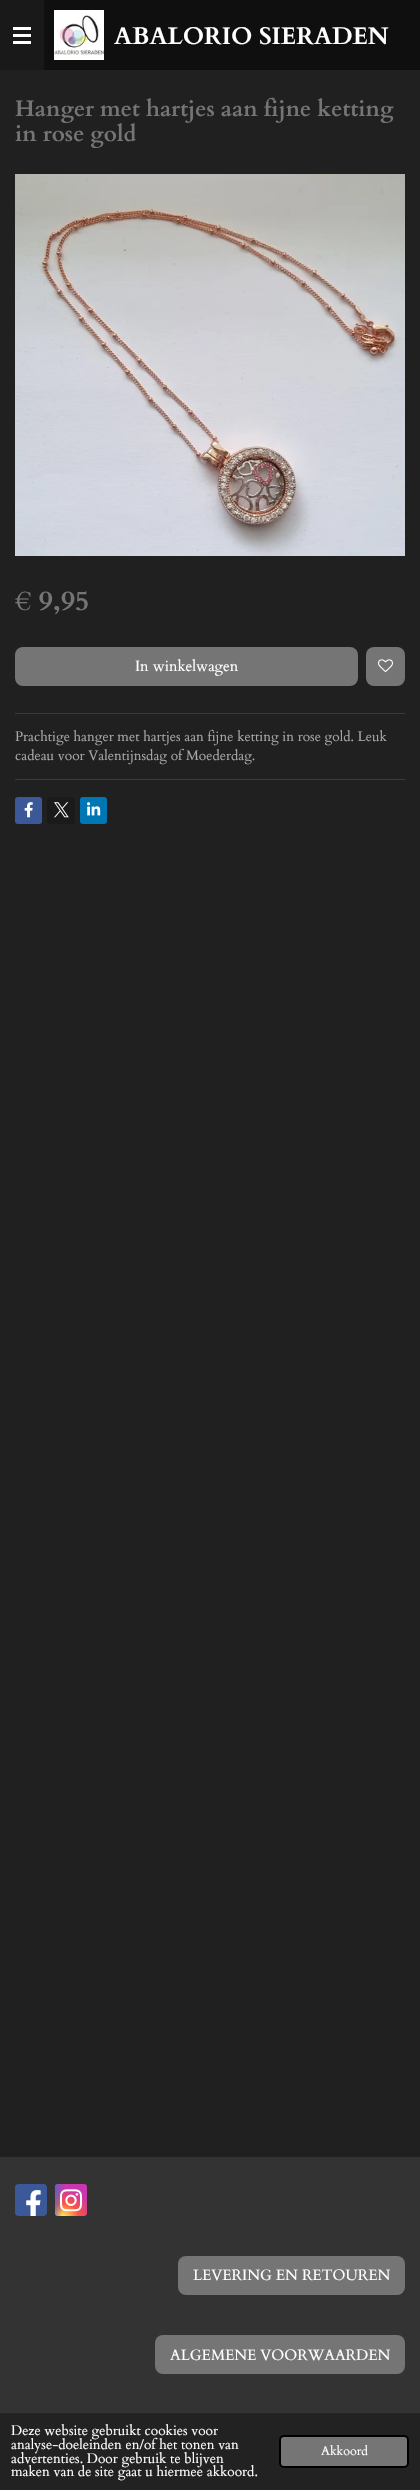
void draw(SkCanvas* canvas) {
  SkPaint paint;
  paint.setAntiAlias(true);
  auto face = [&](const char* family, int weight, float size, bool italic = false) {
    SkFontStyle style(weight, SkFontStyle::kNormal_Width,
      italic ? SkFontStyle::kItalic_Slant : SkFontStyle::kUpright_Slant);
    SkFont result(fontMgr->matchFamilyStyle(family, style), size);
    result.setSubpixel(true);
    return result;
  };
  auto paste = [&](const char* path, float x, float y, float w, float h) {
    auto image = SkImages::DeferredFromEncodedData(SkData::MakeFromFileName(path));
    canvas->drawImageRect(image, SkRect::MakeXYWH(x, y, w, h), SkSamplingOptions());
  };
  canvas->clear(0xff0f0f0f);
  {
    const struct { float x, y, w, h; SkColor color; } items[] = {
      {0, 0, 44, 70, 0xff191919},
      {13, 34, 18, 3, 0xffffffff},
      {13, 27, 18, 3, 0xffffffff},
      {13, 41, 18, 3, 0xffffffff},
    };
    for (auto [x, y, w, h, color] : items) {
      paint.setColor(color);
      canvas->drawRect(SkRect::MakeXYWH(x, y, w, h), paint);
    }
  }
  paste("img/1.png", 54, 10, 50, 50);
  paint.setColor(0xff202020);
  canvas->drawRect(SkRect::MakeXYWH(0, 70, 420, 2087), paint);
  paste("img/2.png", 15, 174, 390, 382);
  paint.setColor(0xff757575);
  canvas->drawRoundRect(SkRect::MakeXYWH(15, 647, 343, 39), 8, 8, paint);
  canvas->drawRoundRect(SkRect::MakeXYWH(366, 647, 39, 39), 8, 8, paint);
  paste("img/3.png", 378, 659, 15, 14);
  paint.setColor(0xff3b3b3c);
  canvas->drawRect(SkRect::MakeXYWH(15, 713, 390, 1), paint);
  canvas->drawRect(SkRect::MakeXYWH(15, 779, 390, 1), paint);
  paint.setColor(0xff3b5998);
  canvas->drawRoundRect(SkRect::MakeXYWH(15, 797, 27, 27), 3, 3, paint);
  paste("img/4.png", 24, 802, 9, 16);
  paint.setColor(0xff1a1a1a);
  canvas->drawRoundRect(SkRect::MakeXYWH(47, 797, 28, 27), 3, 3, paint);
  paste("img/5.png", 54, 802, 15, 16);
  paint.setColor(0xff0077b5);
  canvas->drawRoundRect(SkRect::MakeXYWH(80, 797, 27, 27), 3, 3, paint);
  paste("img/6.png", 87, 802, 14, 14);
  paint.setColor(0xff333333);
  canvas->drawRect(SkRect::MakeXYWH(0, 2157, 420, 256), paint);
  paint.setColor(0xff3b5998);
  canvas->drawRoundRect(SkRect::MakeXYWH(15, 2184, 32, 32), 4, 4, paint);
  paste("img/7.png", 26, 2190, 15, 26);
  {
    const SkColor colors[] = {0xffffdd55, 0xffffdd55, 0xffff543e, 0xffc837ab};
    const float stops[] = {0, 0.1f, 0.5f, 1};
    SkMatrix m = SkMatrix::Translate(63, 2218).preScale(31, 29);
    paint.setShader(SkGradientShader::MakeRadial({0, 0}, 1, colors, stops, 4, SkTileMode::kClamp, 0, &m));
    paint.setAlpha(255);
  }
  canvas->drawRoundRect(SkRect::MakeXYWH(55, 2184, 32, 32), 3, 3, paint);
  {
    const SkColor colors[] = {0xff3771c8, 0xff3771c8, 0x003771c8};
    const float stops[] = {0, 0.13f, 1};
    SkMatrix m = SkMatrix::Translate(50, 2186).preScale(14, 58);
    paint.setShader(SkGradientShader::MakeRadial({0, 0}, 1, colors, stops, 3, SkTileMode::kClamp, 0, &m));
    paint.setAlpha(255);
  }
  canvas->drawRoundRect(SkRect::MakeXYWH(55, 2184, 32, 32), 3, 3, paint);
  paste("img/8.png", 60, 2189, 22, 23);
  paint.setShader(nullptr);
  paint.setColor(0xff757575);
  canvas->drawRoundRect(SkRect::MakeXYWH(178, 2256, 227, 39), 8, 8, paint);
  canvas->drawRoundRect(SkRect::MakeXYWH(155, 2335, 250, 39), 8, 8, paint);
  paint.setColor(0xff222222);
  canvas->drawRect(SkRect::MakeXYWH(0, 2413, 420, 77), paint);
  paint.setColor(0xff757575);
  canvas->drawRoundRect(SkRect::MakeXYWH(280, 2436, 128, 31), 4, 4, paint);
  paint.setStroke(true);
  paint.setStrokeWidth(2);
  paint.setColor(0xff000000);
  canvas->drawRoundRect(SkRect::MakeXYWH(280, 2436, 128, 31), 4, 4, paint);
  auto f0 = face("Cardo", 700, 24);
  paint.setStroke(false);
  paint.setColor(0xffffffff);
  canvas->drawString("ABALORIO SIERADEN", 114, 44, f0, paint);
  auto f1 = face("Cardo", 700, 22.5f);
  paint.setColor(0xff757575);
  canvas->drawString("Hanger met hartjes aan fijne ketting", 15, 116, f1, paint);
  canvas->drawString("in rose gold", 15, 141, f1, paint);
  auto f2 = face("Cardo", 700, 27.5f);
  canvas->drawString("€ 9,95", 15, 610, f2, paint);
  auto f3 = face("Cardo", 400, 15);
  paint.setColor(0xffffffff);
  canvas->drawString("In winkelwagen", 135, 671, f3, paint);
  auto f4 = face("Cardo", 400, 13.7f);
  paint.setColor(0xffa7a9ab);
  canvas->drawString("Prachtige hanger met hartjes aan fijne ketting in rose gold. Leuk", 15, 741, f4, paint);
  canvas->drawString("cadeau voor Valentijnsdag of Moederdag.", 15, 760, f4, paint);
  paint.setColor(0xffffffff);
  canvas->drawString("LEVERING EN RETOUREN", 193, 2280, f3, paint);
  canvas->drawString("ALGEMENE VOORWAARDEN", 170, 2360, f3, paint);
  {
    const struct { const char* s; float x, y; } items[] = {
      {"Deze website gebruikt cookies voor", 11, 2435},
      {"analyse-doeleinden en/of het tonen van", 11, 2449},
      {"advertenties. Door gebruik te blijven", 11, 2463},
      {"maken van de site gaat u hiermee akkoord.", 11, 2476},
    };
    for (auto [s, x, y] : items) {
      canvas->drawString(s, x, y, f4, paint);
    }
  }
  auto f5 = face("Cardo", 400, 12.5f);
  canvas->drawString("Akkoord", 321, 2455, f5, paint);
}
